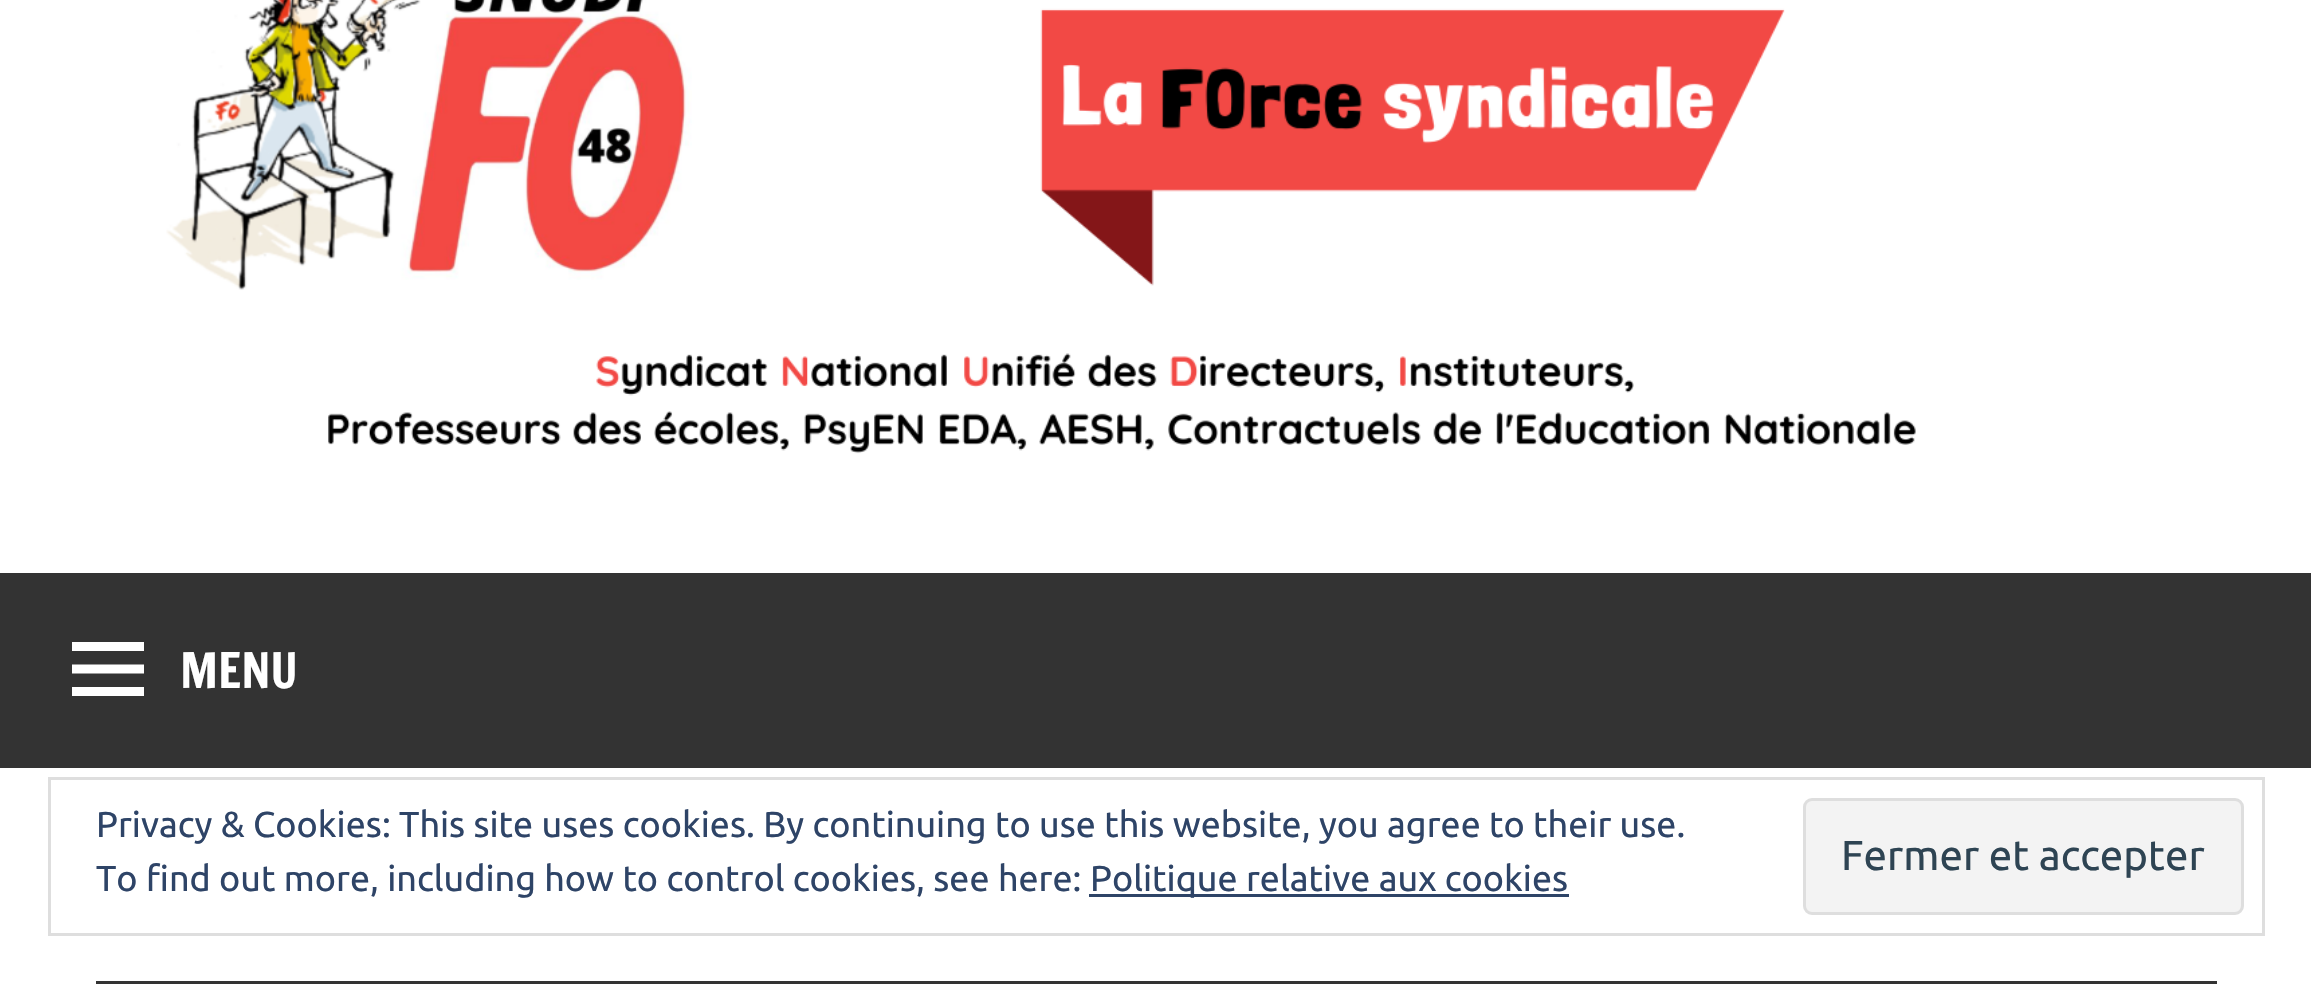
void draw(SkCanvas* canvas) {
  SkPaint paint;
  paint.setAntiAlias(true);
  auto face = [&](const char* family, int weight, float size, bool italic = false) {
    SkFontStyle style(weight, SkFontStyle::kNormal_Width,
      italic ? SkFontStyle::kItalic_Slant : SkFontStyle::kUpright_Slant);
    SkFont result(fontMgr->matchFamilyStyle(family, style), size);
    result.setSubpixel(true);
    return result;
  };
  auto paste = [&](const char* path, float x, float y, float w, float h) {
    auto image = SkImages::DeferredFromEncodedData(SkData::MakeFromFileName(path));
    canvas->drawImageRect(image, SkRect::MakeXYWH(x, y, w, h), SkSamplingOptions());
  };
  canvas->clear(0xffffffff);
  paste("img/1.png", 166, 0, 1750, 454);
  paint.setColor(0xff333333);
  canvas->drawRect(SkRect::MakeXYWH(0, 573, 2311, 195), paint);
  paste("img/2.png", 72, 642, 72, 54);
  canvas->drawRect(SkRect::MakeXYWH(96, 981, 2121, 3), paint);
  paint.setStroke(true);
  paint.setStrokeWidth(3);
  paint.setColor(0xffdedede);
  canvas->drawRect(SkRect::MakeXYWH(49.5f, 778.5f, 2214, 156), paint);
  paint.setStroke(false);
  paint.setColor(0xff2e4467);
  canvas->drawRect(SkRect::MakeXYWH(1089, 894, 480, 3), paint);
  paint.setColor(0xfff3f3f3);
  canvas->drawRoundRect(SkRect::MakeXYWH(1804.5f, 799.5f, 438, 114), 7.5f, 7.5f, paint);
  paint.setStroke(true);
  paint.setColor(0xffdedede);
  canvas->drawRoundRect(SkRect::MakeXYWH(1804.5f, 799.5f, 438, 114), 7.5f, 7.5f, paint);
  auto f0 = face("Francois One", 400, 48);
  paint.setStroke(false);
  paint.setColor(0xffffffff);
  canvas->drawString("MENU", 180, 688, f0, paint);
  auto f1 = face("Ubuntu", 400, 36);
  paint.setColor(0xff2e4467);
  {
    const struct { const char* s; float x, y; } items[] = {
      {"Privacy & Cookies: This site uses cookies. By continuing to use this website, you agree to their use.", 96, 837},
      {"To find out more, including how to control cookies, see here:", 96, 891},
      {"Politique relative aux cookies", 1090, 891},
    };
    for (auto [s, x, y] : items) {
      canvas->drawString(s, x, y, f1, paint);
    }
  }
  auto f2 = face("Ubuntu", 400, 42);
  paint.setColor(0xff2e4453);
  canvas->drawString("Fermer et accepter", 1841, 870, f2, paint);
}
